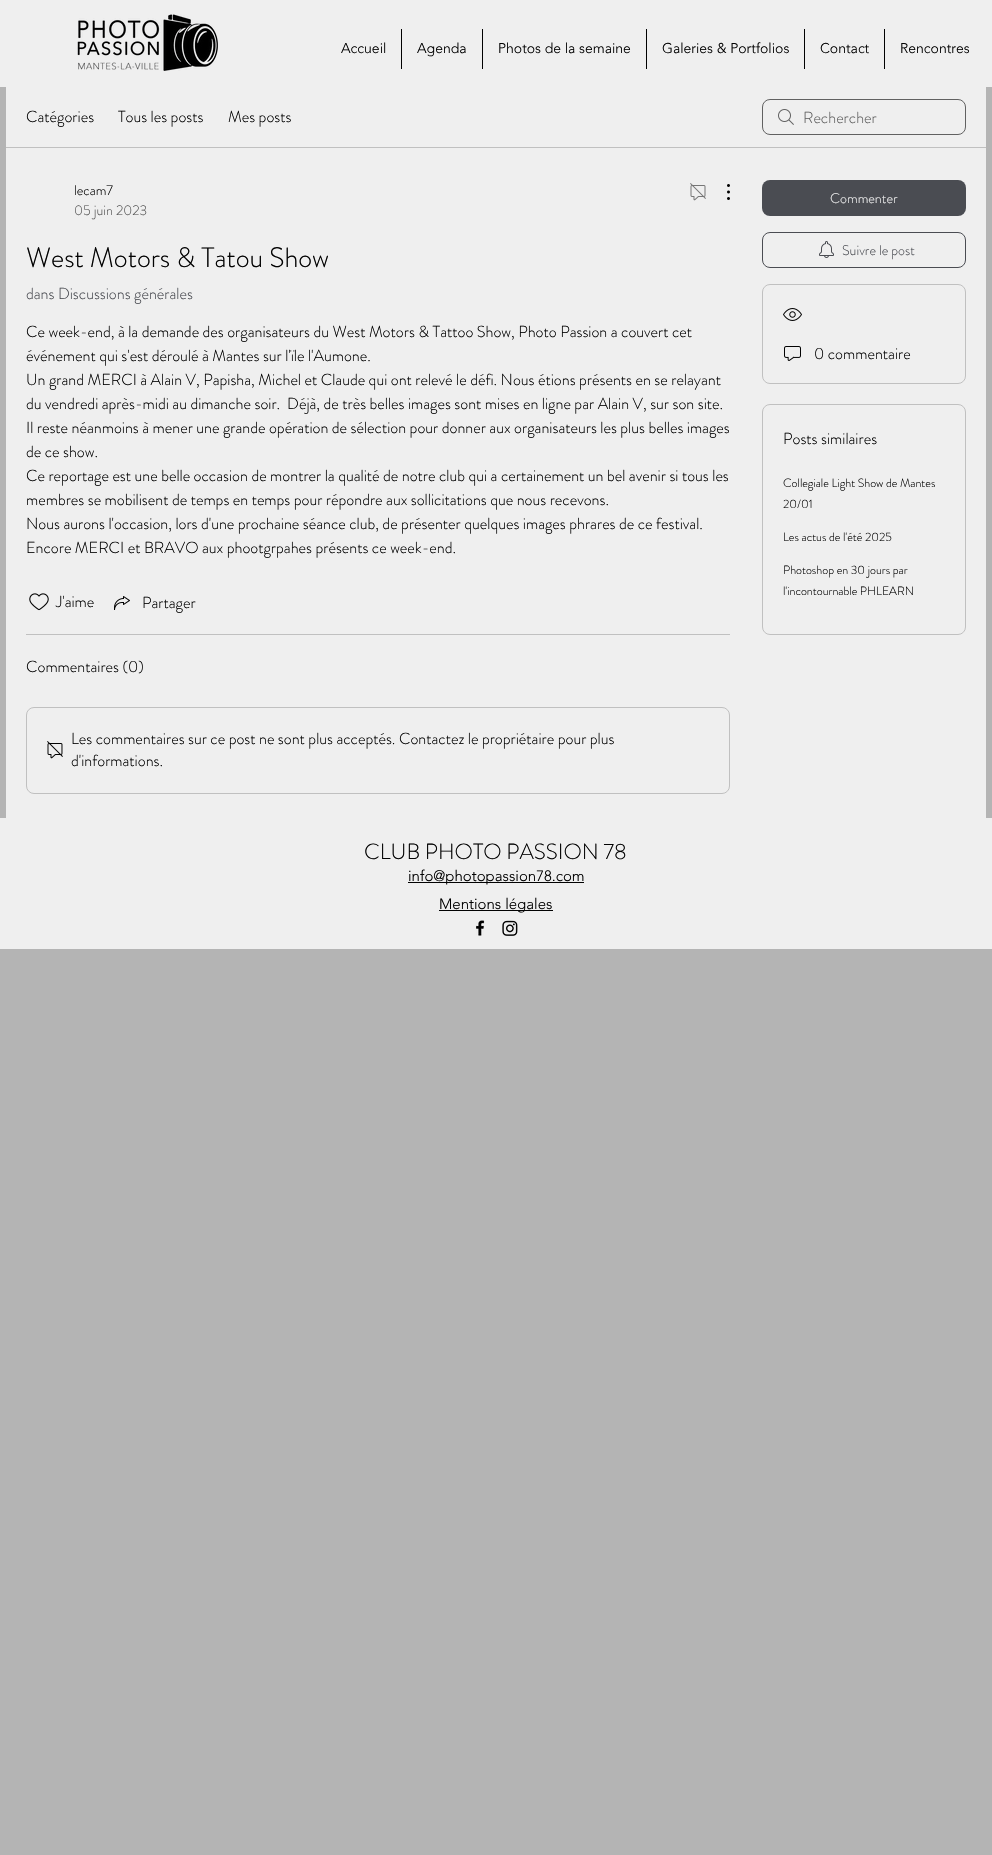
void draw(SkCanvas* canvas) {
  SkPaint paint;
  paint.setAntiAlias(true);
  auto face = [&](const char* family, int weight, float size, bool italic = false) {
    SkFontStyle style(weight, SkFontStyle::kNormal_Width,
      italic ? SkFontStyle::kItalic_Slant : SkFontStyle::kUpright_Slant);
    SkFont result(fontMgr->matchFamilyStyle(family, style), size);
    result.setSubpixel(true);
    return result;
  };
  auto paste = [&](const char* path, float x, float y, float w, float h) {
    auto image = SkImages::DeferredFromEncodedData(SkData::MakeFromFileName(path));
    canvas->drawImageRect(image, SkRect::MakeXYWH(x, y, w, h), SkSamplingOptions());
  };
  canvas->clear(0xffb4b4b4);
  paint.setColor(0xffefefef);
  canvas->drawRect(SkRect::MakeXYWH(0, 0, 992, 87), paint);
  paste("img/1.png", 77, 14, 141, 57);
  {
    const struct { float x, y, w, h; SkColor color; } items[] = {
      {401, 29, 1, 40, 0xff020202},
      {482, 29, 1, 40, 0xff020202},
      {646, 29, 1, 40, 0xff020202},
      {804, 29, 1, 40, 0xff020202},
      {884, 29, 1, 40, 0xff020202},
      {6, 87, 980, 731, 0xffefefef},
      {6, 147, 980, 1, 0xffc0c0c0},
    };
    for (auto [x, y, w, h, color] : items) {
      paint.setColor(color);
      canvas->drawRect(SkRect::MakeXYWH(x, y, w, h), paint);
    }
  }
  paste("img/2.png", 778, 109, 16, 16);
  paint.setStroke(true);
  paint.setStrokeWidth(1);
  paint.setColor(0xff616161);
  canvas->drawRoundRect(SkRect::MakeXYWH(762.5f, 99.5f, 203, 35), 7.5f, 7.5f, paint);
  paste("img/3.png", 690, 183, 16, 18);
  paste("img/4.png", 727, 184, 3, 16);
  paste("img/5.png", 29, 593, 20, 18);
  paste("img/6.png", 114, 596, 16, 14);
  paint.setStroke(false);
  paint.setColor(0xffc0c0c0);
  canvas->drawRect(SkRect::MakeXYWH(26, 634, 704, 1), paint);
  paint.setStroke(true);
  canvas->drawRoundRect(SkRect::MakeXYWH(26.5f, 707.5f, 703, 86), 7.5f, 7.5f, paint);
  paste("img/7.png", 47, 741, 16, 18);
  paint.setStroke(false);
  paint.setColor(0xff4a4c52);
  canvas->drawRoundRect(SkRect::MakeXYWH(762, 180, 204, 36), 8, 8, paint);
  paint.setStroke(true);
  canvas->drawRoundRect(SkRect::MakeXYWH(762.5f, 232.5f, 203, 35), 7.5f, 7.5f, paint);
  paste("img/8.png", 819, 241, 15, 17);
  paint.setColor(0xffc0c0c0);
  canvas->drawRoundRect(SkRect::MakeXYWH(762.5f, 284.5f, 203, 99), 7.5f, 7.5f, paint);
  paste("img/9.png", 783, 308, 19, 13);
  paste("img/10.png", 784, 346, 17, 15);
  canvas->drawRoundRect(SkRect::MakeXYWH(762.5f, 404.5f, 203, 230), 7.5f, 7.5f, paint);
  paint.setStroke(false);
  {
    const struct { float x, y, w, h; SkColor color; } items[] = {
      {0, 818, 992, 131, 0xffefefef},
      {408, 882, 176, 1, 0xff020202},
      {439, 910, 114, 1, 0xff020202},
    };
    for (auto [x, y, w, h, color] : items) {
      paint.setColor(color);
      canvas->drawRect(SkRect::MakeXYWH(x, y, w, h), paint);
    }
  }
  paste("img/11.png", 476, 920, 9, 16);
  paste("img/12.png", 502, 920, 16, 16);
  auto f0 = face("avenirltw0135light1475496", 300, 14);
  {
    const struct { const char* s; float x, y; } items[] = {
      {"Accueil", 341, 53},
      {"Agenda", 417, 53},
      {"Photos de la semaine", 498, 53},
      {"Galeries & Portfolios", 662, 53},
      {"Contact", 820, 53},
      {"Rencontres", 900, 53},
    };
    for (auto [s, x, y] : items) {
      canvas->drawString(s, x, y, f0, paint);
    }
  }
  auto f1 = face("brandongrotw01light", 300, 16);
  {
    const struct { const char* s; float x, y; } items[] = {
      {"Catégories", 26, 122},
      {"Tous les posts", 118, 122},
      {"Mes posts", 228, 122},
    };
    for (auto [s, x, y] : items) {
      canvas->drawString(s, x, y, f1, paint);
    }
  }
  paint.setColor(0xff616161);
  canvas->drawString("Rechercher", 803, 123, f1, paint);
  auto f2 = face("brandongrotw01light", 300, 14);
  paint.setColor(0xff020202);
  canvas->drawString("lecam7", 74, 195, f2, paint);
  paint.setColor(0xff575757);
  canvas->drawString("05 juin 2023", 74, 215, f2, paint);
  auto f3 = face("brandongrotw01light", 300, 28);
  paint.setColor(0xff020202);
  canvas->drawString("West Motors & Tatou Show", 26, 267, f3, paint);
  paint.setColor(0xff4a4c52);
  canvas->drawString("dans Discussions générales", 26, 299, f1, paint);
  paint.setColor(0xff020202);
  {
    const struct { const char* s; float x, y; } items[] = {
      {"Ce week-end, à la demande des organisateurs du West Motors & Tattoo Show, Photo Passion a couvert cet", 26, 337},
      {"événement qui s'est déroulé à Mantes sur l'ïle l'Aumone.", 26, 361},
      {"Un grand MERCI à Alain V, Papisha, Michel et Claude qui ont relevé le défi. Nous étions présents en se relayant", 26, 385},
      {"du vendredi après-midi au dimanche soir.  Déjà, de très belles images sont mises en ligne par Alain V, sur son site.", 26, 409},
      {"Il reste néanmoins à mener une grande opération de sélection pour donner aux organisateurs les plus belles images", 26, 433},
      {"de ce show.", 26, 457},
      {"Ce reportage est une belle occasion de montrer la qualité de notre club qui a certainement un bel avenir si tous les", 26, 481},
      {"membres se mobilisent de temps en temps pour répondre aux sollicitations que nous recevons.", 26, 505},
      {"Nous aurons l'occasion, lors d'une prochaine séance club, de présenter quelques images phrares de ce festival.", 26, 529},
      {"Encore MERCI et BRAVO aux phootgrpahes présents ce week-end.", 26, 553},
      {"J'aime", 56, 607},
      {"Partager", 142, 608},
      {"Commentaires (0)", 26, 672},
      {"Les commentaires sur ce post ne sont plus acceptés. Contactez le propriétaire pour plus", 71, 744},
      {"d'informations.", 71, 766},
    };
    for (auto [s, x, y] : items) {
      canvas->drawString(s, x, y, f1, paint);
    }
  }
  paint.setColor(0xffefefef);
  canvas->drawString("Commenter", 830, 203, f2, paint);
  paint.setColor(0xff4a4c52);
  canvas->drawString("Suivre le post", 842, 255, f2, paint);
  paint.setColor(0xff020202);
  canvas->drawString("0 commentaire", 814, 359, f1, paint);
  canvas->drawString("Posts similaires", 783, 444, f1, paint);
  auto f4 = face("brandongrotw01light", 300, 12);
  {
    const struct { const char* s; float x, y; } items[] = {
      {"Collegiale Light Show de Mantes", 783, 487},
      {"20/01", 783, 508},
      {"Les actus de l'été 2025", 783, 541},
      {"Photoshop en 30 jours par", 783, 574},
      {"l'incontournable PHLEARN", 783, 595},
    };
    for (auto [s, x, y] : items) {
      canvas->drawString(s, x, y, f4, paint);
    }
  }
  auto f5 = face("brandongrotw01light", 300, 22);
  canvas->drawString("CLUB PHOTO PASSION 78", 364, 859, f5, paint);
  auto f6 = face("avenirltw0135light1475496", 300, 15);
  canvas->drawString("info@photopassion78.com", 408, 881, f6, paint);
  canvas->drawString("Mentions légales", 439, 909, f6, paint);
}
